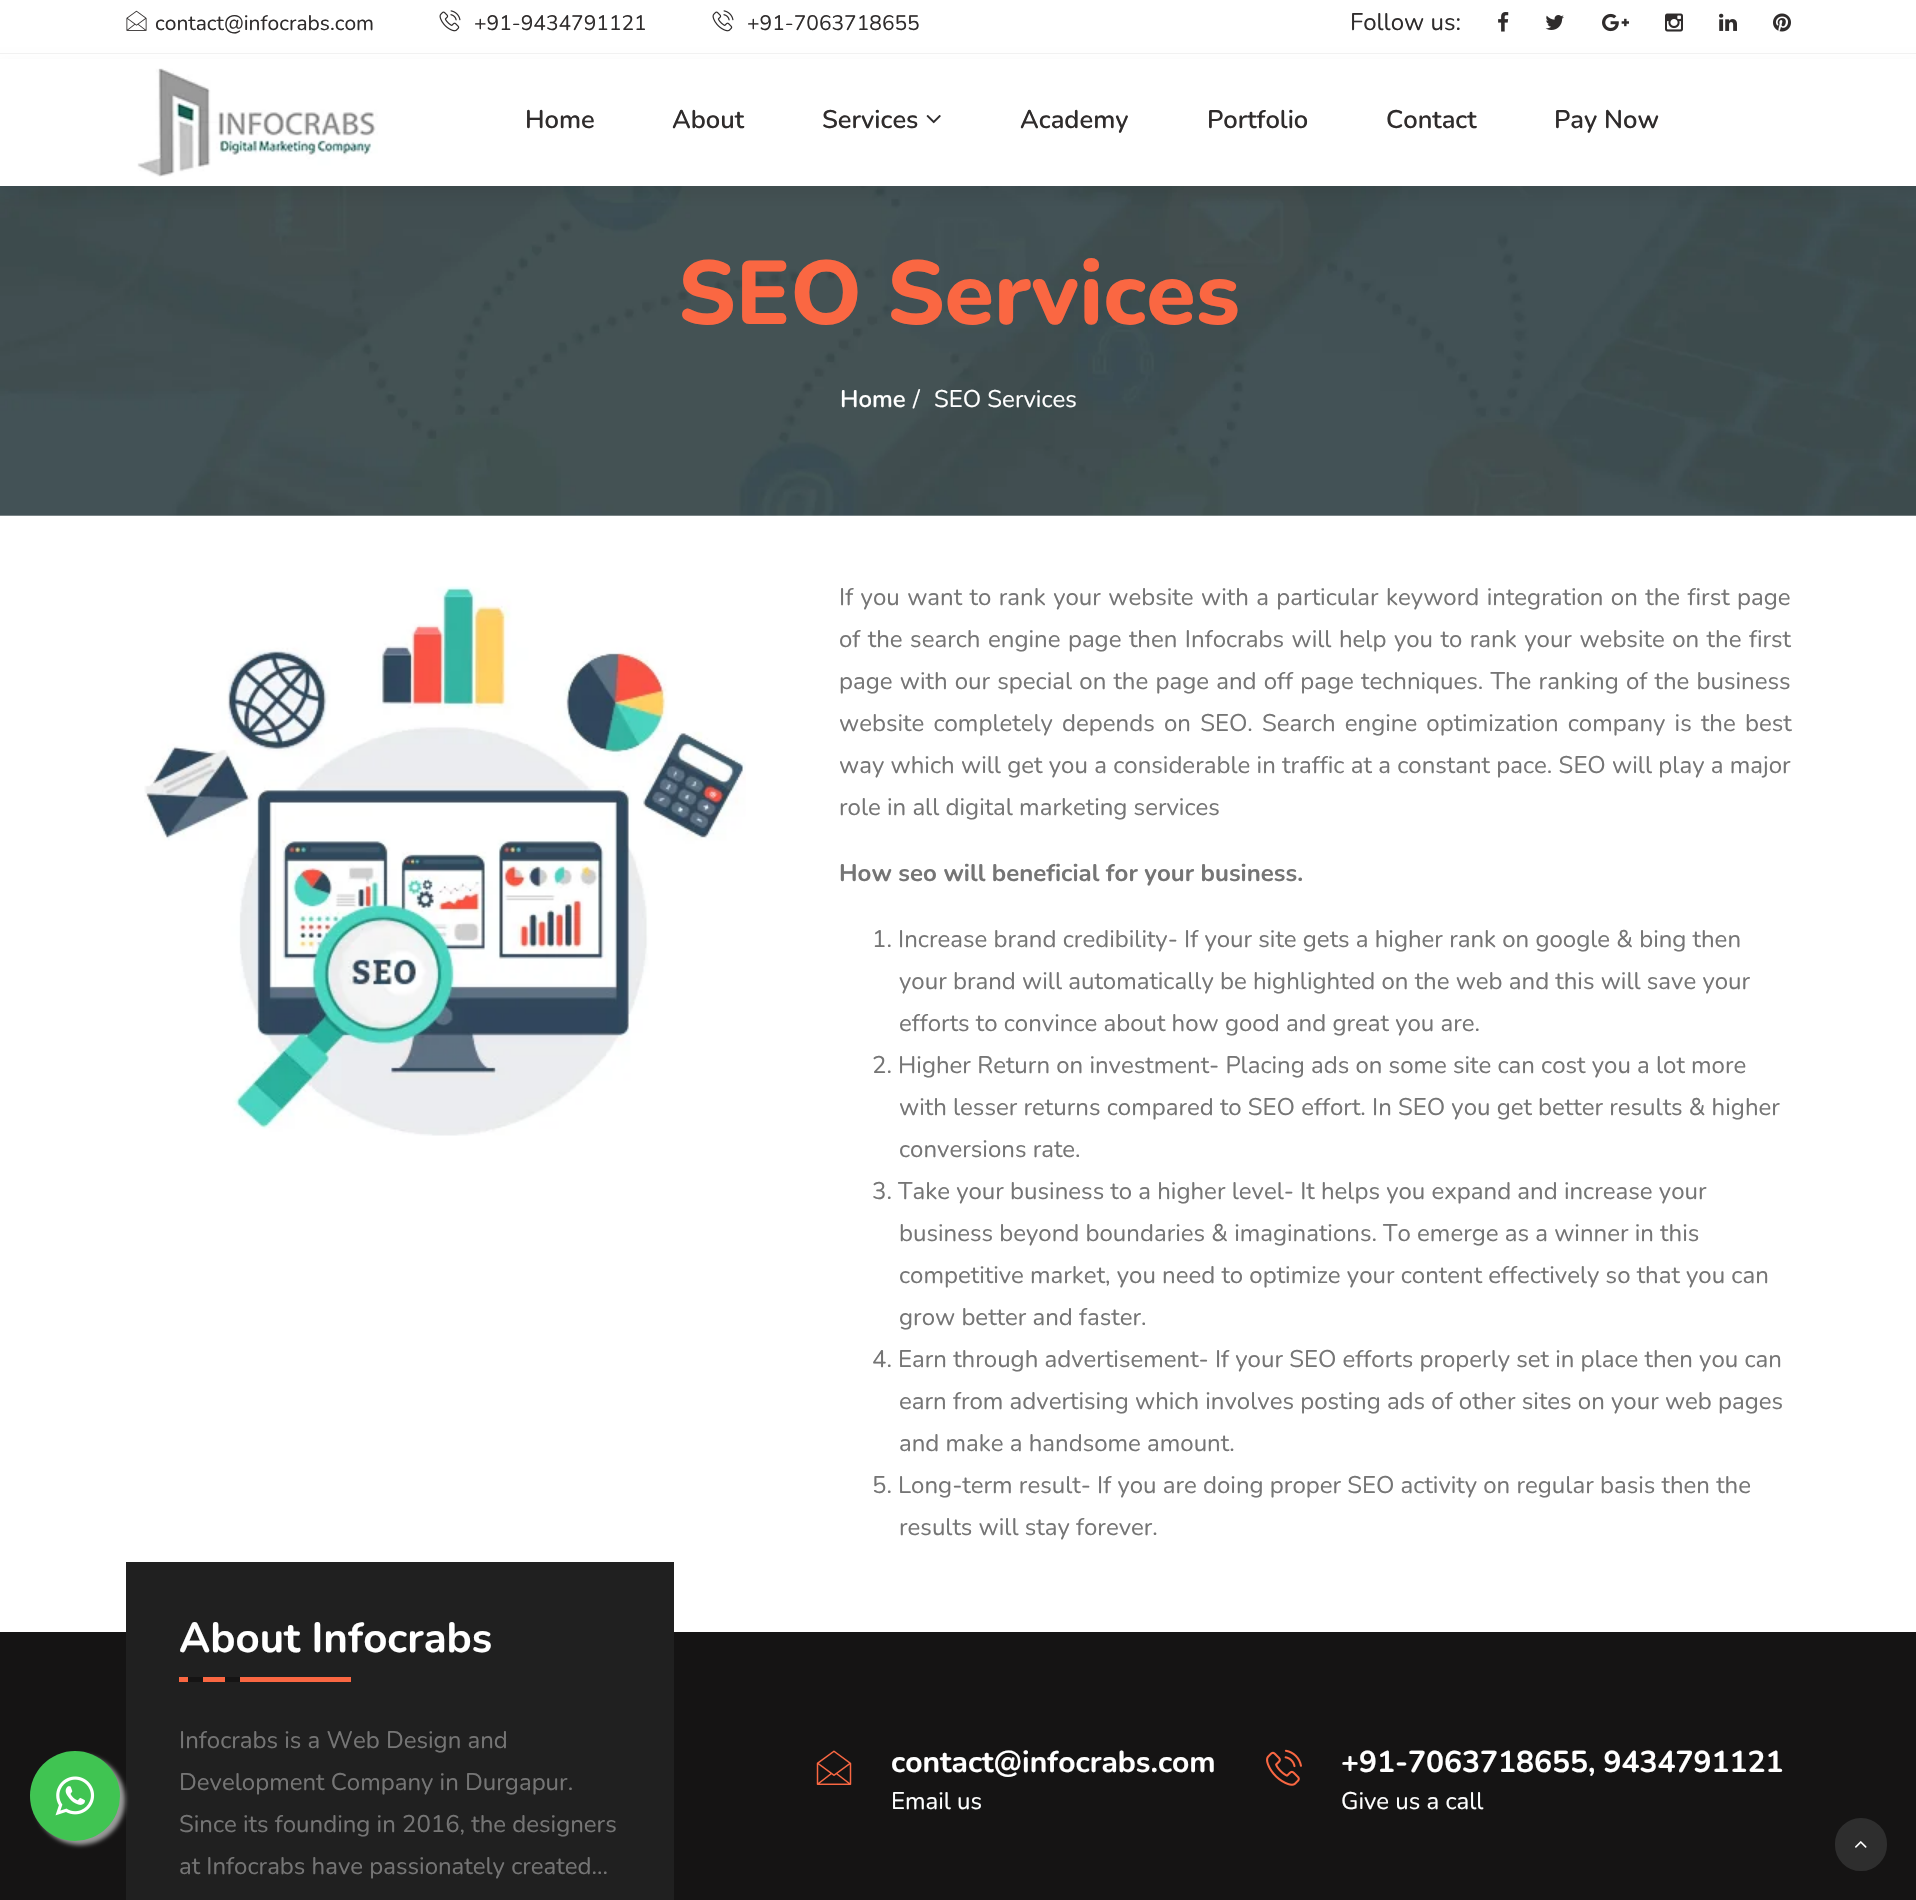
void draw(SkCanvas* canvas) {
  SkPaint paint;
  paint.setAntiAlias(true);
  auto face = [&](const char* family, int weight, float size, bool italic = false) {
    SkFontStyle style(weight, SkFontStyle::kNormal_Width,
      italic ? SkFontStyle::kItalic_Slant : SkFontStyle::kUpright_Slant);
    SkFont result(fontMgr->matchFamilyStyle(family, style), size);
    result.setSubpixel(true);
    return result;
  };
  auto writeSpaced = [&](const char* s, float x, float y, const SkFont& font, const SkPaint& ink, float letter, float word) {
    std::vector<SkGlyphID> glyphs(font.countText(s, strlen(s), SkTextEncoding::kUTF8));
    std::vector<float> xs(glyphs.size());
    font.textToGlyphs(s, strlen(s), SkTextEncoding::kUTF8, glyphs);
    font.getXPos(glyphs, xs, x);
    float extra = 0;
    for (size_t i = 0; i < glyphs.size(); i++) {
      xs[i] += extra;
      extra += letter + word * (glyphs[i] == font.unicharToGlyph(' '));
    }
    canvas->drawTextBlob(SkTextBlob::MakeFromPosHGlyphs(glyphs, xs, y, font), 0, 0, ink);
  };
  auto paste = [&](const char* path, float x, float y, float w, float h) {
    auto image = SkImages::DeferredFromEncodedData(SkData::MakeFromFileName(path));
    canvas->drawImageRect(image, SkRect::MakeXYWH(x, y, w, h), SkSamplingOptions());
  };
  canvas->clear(0xffffffff);
  paint.setColor(0xfff2f2f2);
  canvas->drawRect(SkRect::MakeXYWH(0, 53, 1916, 1), paint);
  paste("img/1.png", 126, 10, 21, 21);
  paste("img/2.png", 439, 10, 22, 22);
  paste("img/2.png", 712, 10, 22, 22);
  paste("img/3.png", 1498, 12, 11, 20);
  paste("img/4.png", 1545, 15, 19, 15);
  paste("img/5.png", 1602, 13, 27, 19);
  paste("img/6.png", 1665, 13, 18, 19);
  paste("img/7.png", 1719, 13, 18, 18);
  paste("img/8.png", 1773, 13, 18, 19);
  paste("img/11.png", 0, 186, 1916, 330);
  paint.setColor(0x0f000000);
  paint.setMaskFilter(SkMaskFilter::MakeBlur(kNormal_SkBlurStyle, 6));
  canvas->drawRect(SkRect::MakeXYWH(0, 65, 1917, 132), paint);
  paint.setMaskFilter(nullptr);
  paint.setColor(0xffffffff);
  canvas->drawRect(SkRect::MakeXYWH(0, 59, 1916, 127), paint);
  paste("img/9.png", 137, 68, 241, 109);
  paste("img/10.png", 926, 115, 15, 9);
  paste("img/12.png", 144, 586, 602, 550);
  paint.setColor(0xff151414);
  canvas->drawRect(SkRect::MakeXYWH(0, 1632, 1916, 268), paint);
  paint.setColor(0xff202020);
  canvas->drawRect(SkRect::MakeXYWH(126, 1562, 548, 338), paint);
  paint.setColor(0xff999999);
  paint.setMaskFilter(SkMaskFilter::MakeBlur(kNormal_SkBlurStyle, 2));
  canvas->drawRoundRect(SkRect::MakeXYWH(35, 1755, 90, 90), 45, 45, paint);
  paint.setMaskFilter(nullptr);
  paint.setColor(0xff40c452);
  canvas->drawCircle(75, 1796, 45, paint);
  paste("img/13.png", 55, 1776, 40, 40);
  {
    const struct { float x, y, w, h; SkColor color; } items[] = {
      {179, 1677, 172, 5, 0xfffa6742},
      {225, 1677, 15, 5, 0xff151414},
      {188, 1677, 15, 5, 0xff151414},
    };
    for (auto [x, y, w, h, color] : items) {
      paint.setColor(color);
      canvas->drawRect(SkRect::MakeXYWH(x, y, w, h), paint);
    }
  }
  paste("img/14.png", 816, 1750, 36, 35);
  paste("img/15.png", 1266, 1749, 36, 37);
  paint.setColor(0xff2e2e2e);
  canvas->drawRoundRect(SkRect::MakeXYWH(1836, 1819, 50, 51), 25, 25, paint);
  paint.setStroke(true);
  paint.setStrokeWidth(2);
  canvas->drawRoundRect(SkRect::MakeXYWH(1836, 1819, 50, 51), 25, 25, paint);
  paste("img/16.png", 1855, 1841, 12, 7);
  auto f0 = face("Nunito", 400, 21);
  paint.setStroke(false);
  paint.setColor(0xff2f2c2c);
  {
    const struct { const char* s; float x, y; } items[] = {
      {"contact@infocrabs.com", 155, 30},
      {"+91-9434791121", 474, 30},
      {"+91-7063718655", 747, 30},
    };
    for (auto [s, x, y] : items) {
      canvas->drawString(s, x, y, f0, paint);
    }
  }
  auto f1 = face("Nunito", 400, 24);
  canvas->drawString("Follow us:", 1350, 30, f1, paint);
  auto f2 = face("Nunito", 600, 25.5f);
  {
    const struct { const char* s; float x, y; } items[] = {
      {"Home", 525, 128},
      {"About", 672, 128},
      {"Services", 822, 128},
      {"Academy", 1020, 128},
      {"Portfolio", 1207, 128},
      {"Contact", 1386, 128},
      {"Pay Now", 1554, 128},
    };
    for (auto [s, x, y] : items) {
      canvas->drawString(s, x, y, f2, paint);
    }
  }
  auto f3 = face("Nunito", 800, 90);
  paint.setColor(0xfffa6742);
  canvas->drawString("SEO Services", 678, 324, f3, paint);
  auto f4 = face("Nunito", 600, 24);
  paint.setColor(0xffffffff);
  canvas->drawString("Home", 840, 407, f4, paint);
  canvas->drawString("/", 913, 407, f1, paint);
  canvas->drawString("SEO Services", 934, 407, f1, paint);
  paint.setColor(0xff757575);
  writeSpaced("If you want to rank your website with a particular keyword integration on the first page", 839, 605, f1, paint, 0, 1.25f);
  writeSpaced("of the search engine page then Infocrabs will help you to rank your website on the first", 839, 647, f1, paint, 0, 1.3f);
  writeSpaced("page with our special on the page and off page techniques. The ranking of the business", 839, 689, f1, paint, 0, 1);
  writeSpaced("website completely depends on SEO. Search engine optimization company is the best", 839, 731, f1, paint, 0, 3);
  writeSpaced("way which will get you a considerable in traffic at a constant pace. SEO will play a major", 839, 773, f1, paint, 0, 0.1f);
  canvas->drawString("role in all digital marketing services", 839, 815, f1, paint);
  auto f5 = face("Nunito", 700, 24);
  canvas->drawString("How seo will beneficial for your business.", 839, 881, f5, paint);
  {
    const struct { const char* s; float x, y; } items[] = {
      {"1. Increase brand credibility- If your site gets a higher rank on google & bing then", 872, 947},
      {"your brand will automatically be highlighted on the web and this will save your", 899, 989},
      {"efforts to convince about how good and great you are.", 899, 1031},
      {"2. Higher Return on investment- Placing ads on some site can cost you a lot more", 872, 1073},
      {"with lesser returns compared to SEO effort. In SEO you get better results & higher", 899, 1115},
      {"conversions rate.", 899, 1157},
      {"3. Take your business to a higher level- It helps you expand and increase your", 872, 1199},
      {"business beyond boundaries & imaginations. To emerge as a winner in this", 899, 1241},
      {"competitive market, you need to optimize your content effectively so that you can", 899, 1283},
      {"grow better and faster.", 899, 1325},
      {"4. Earn through advertisement- If your SEO efforts properly set in place then you can", 872, 1367},
      {"earn from advertising which involves posting ads of other sites on your web pages", 899, 1409},
      {"and make a handsome amount.", 899, 1451},
      {"5. Long-term result- If you are doing proper SEO activity on regular basis then the", 872, 1493},
      {"results will stay forever.", 899, 1535},
    };
    for (auto [s, x, y] : items) {
      canvas->drawString(s, x, y, f1, paint);
    }
  }
  auto f6 = face("Nunito", 700, 42);
  paint.setColor(0xffffffff);
  canvas->drawString("About Infocrabs", 179, 1652, f6, paint);
  paint.setColor(0xff757575);
  {
    const struct { const char* s; float x, y; } items[] = {
      {"Infocrabs is a Web Design and", 179, 1748},
      {"Development Company in Durgapur.", 179, 1790},
      {"Since its founding in 2016, the designers", 179, 1832},
      {"at Infocrabs have passionately created...", 179, 1874},
    };
    for (auto [s, x, y] : items) {
      canvas->drawString(s, x, y, f1, paint);
    }
  }
  auto f7 = face("Nunito", 700, 30);
  paint.setColor(0xffffffff);
  canvas->drawString("contact@infocrabs.com", 891, 1772, f7, paint);
  canvas->drawString("Email us", 891, 1809, f1, paint);
  canvas->drawString("+91-7063718655, 9434791121", 1341, 1772, f7, paint);
  canvas->drawString("Give us a call", 1341, 1809, f1, paint);
}
